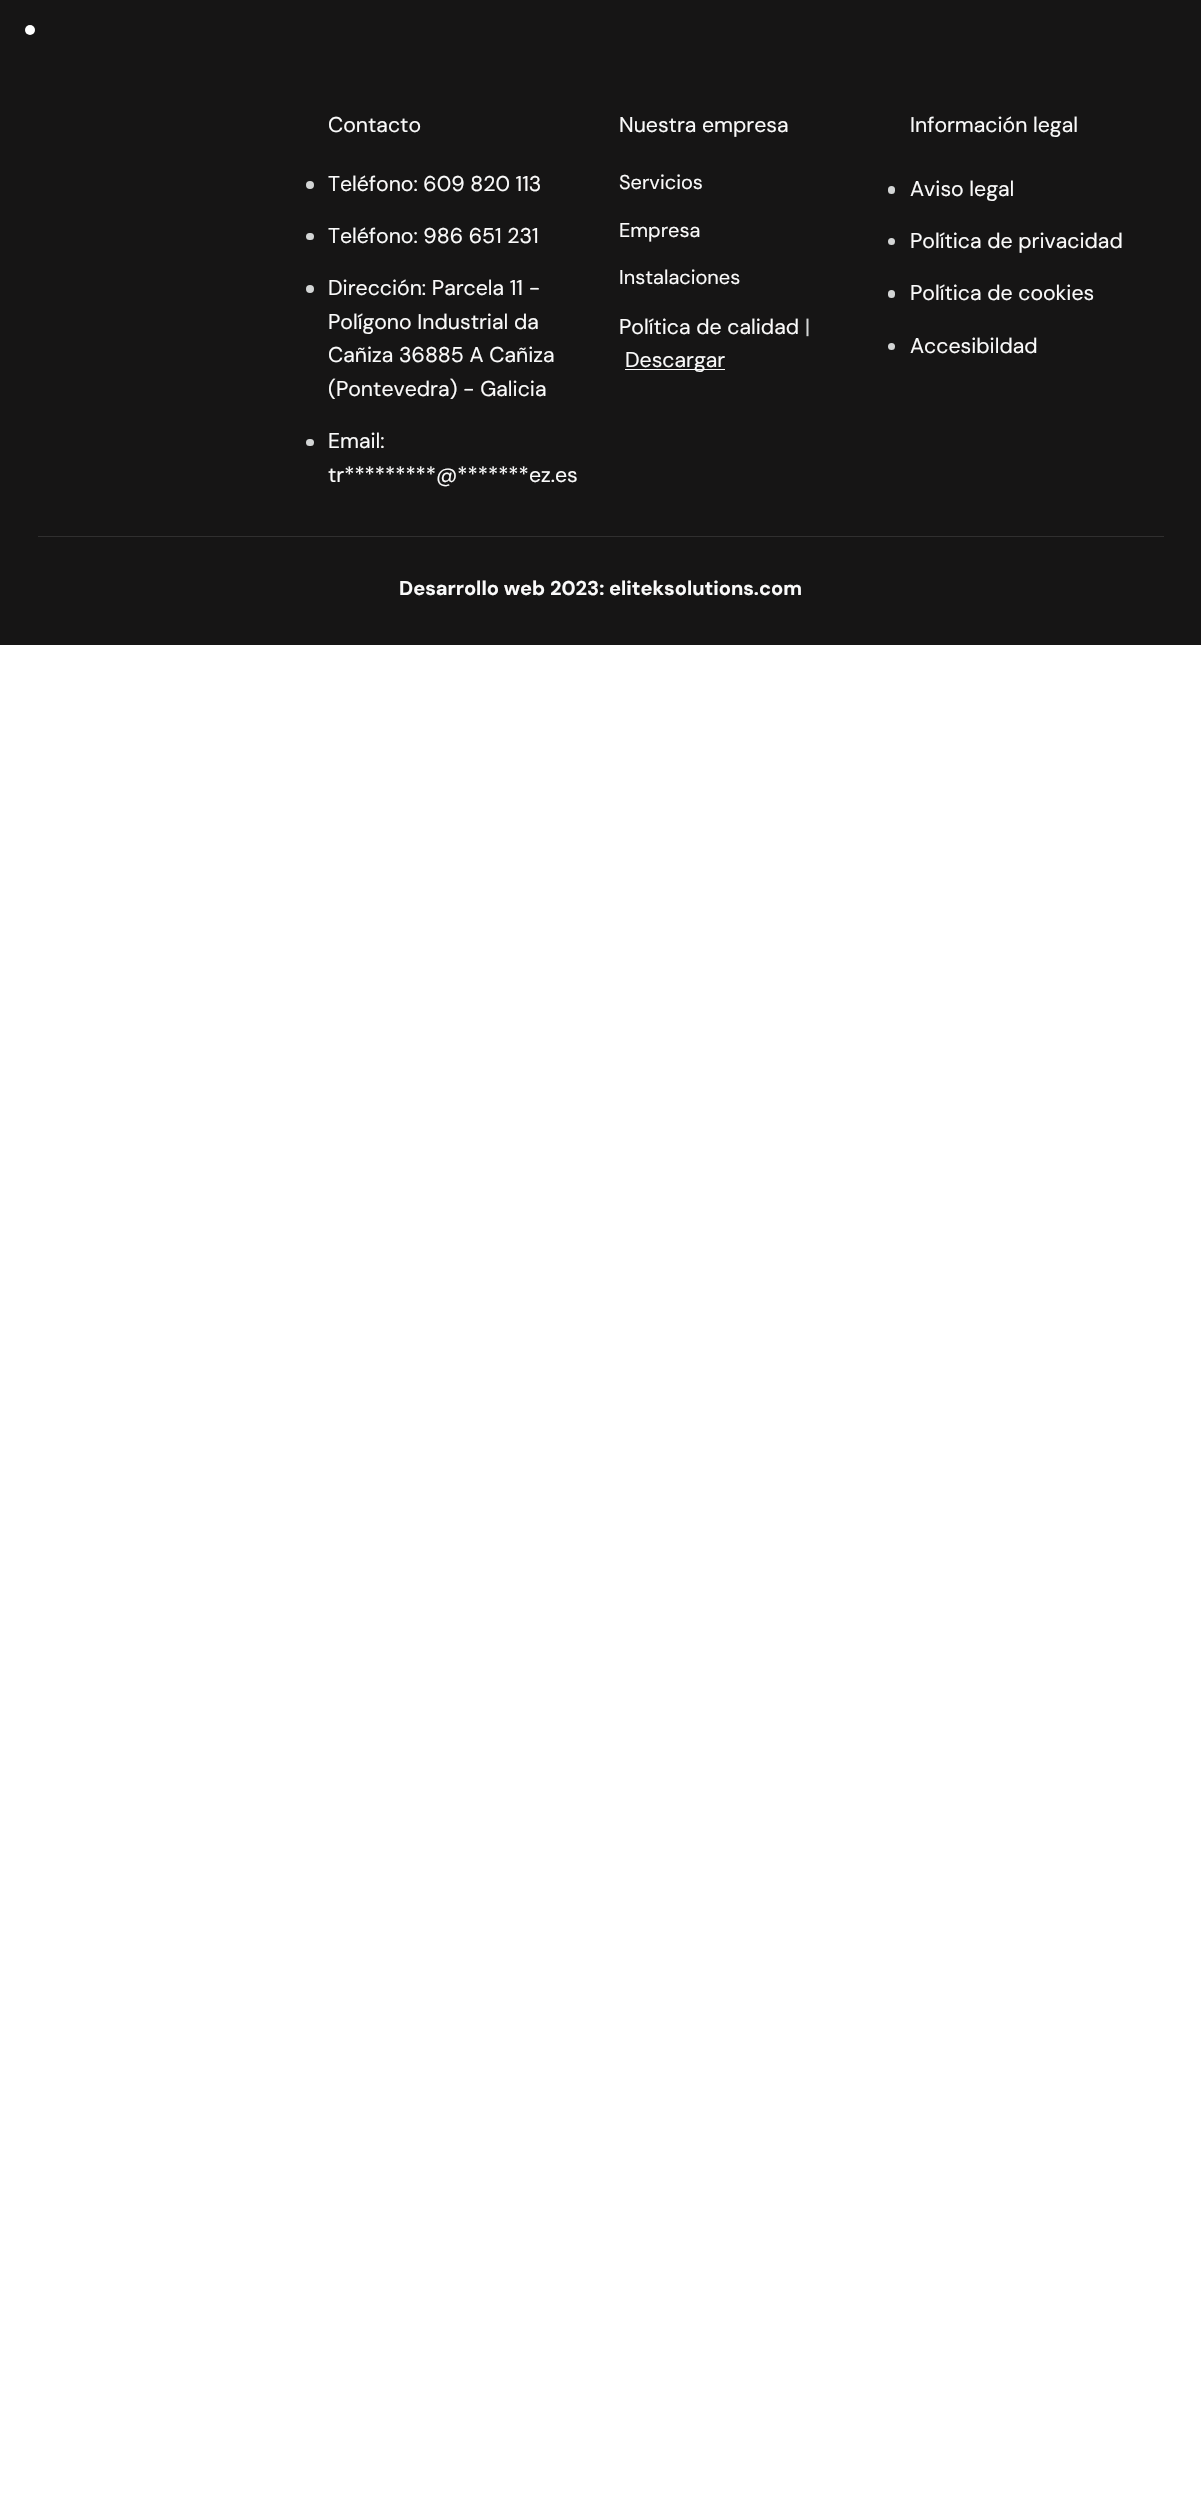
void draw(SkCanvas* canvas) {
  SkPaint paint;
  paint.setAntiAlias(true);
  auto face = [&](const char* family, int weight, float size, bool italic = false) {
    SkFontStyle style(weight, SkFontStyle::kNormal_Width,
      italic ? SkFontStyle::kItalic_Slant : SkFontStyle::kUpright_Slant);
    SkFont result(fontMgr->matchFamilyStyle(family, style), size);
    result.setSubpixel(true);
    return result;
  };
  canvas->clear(0xffffffff);
  paint.setColor(0xff161515);
  canvas->drawRect(SkRect::MakeXYWH(0, 0, 1201, 645), paint);
  paint.setColor(0xffffffff);
  canvas->drawCircle(30, 30, 5, paint);
  paint.setColor(0xffd3d5d5);
  canvas->drawCircle(310, 185, 4, paint);
  canvas->drawRoundRect(SkRect::MakeXYWH(306, 233, 8, 7), 3.5f, 3.5f, paint);
  canvas->drawCircle(310, 289, 4, paint);
  canvas->drawRoundRect(SkRect::MakeXYWH(306, 439, 8, 7), 3.5f, 3.5f, paint);
  paint.setColor(0xfffafafa);
  canvas->drawRect(SkRect::MakeXYWH(625, 369, 100, 1), paint);
  paint.setColor(0xffd3d5d5);
  canvas->drawRoundRect(SkRect::MakeXYWH(888, 186, 7, 8), 3.5f, 3.5f, paint);
  canvas->drawCircle(891.5f, 241.5f, 3.5f, paint);
  canvas->drawRoundRect(SkRect::MakeXYWH(888, 290, 7, 8), 3.5f, 3.5f, paint);
  canvas->drawCircle(891.5f, 346.5f, 3.5f, paint);
  paint.setColor(0xff302f2f);
  canvas->drawRect(SkRect::MakeXYWH(38, 536, 1126, 1), paint);
  auto f0 = face("DM Sans", 400, 21.25f);
  paint.setColor(0xfffafafa);
  {
    const struct { const char* s; float x, y; } items[] = {
      {"Contacto", 328, 132},
      {"Teléfono: 609 820 113", 328, 191},
      {"Teléfono: 986 651 231", 328, 243},
      {"Dirección: Parcela 11 -", 328, 295},
      {"Polígono Industrial da", 328, 329},
      {"Cañiza 36885 A Cañiza", 328, 362},
      {"(Pontevedra) - Galicia", 328, 396},
      {"Email:", 328, 448},
      {"tr*********", 328, 482},
      {"@*******", 436, 482},
      {"ez.es", 529, 482},
      {"Nuestra empresa", 619, 132},
    };
    for (auto [s, x, y] : items) {
      canvas->drawString(s, x, y, f0, paint);
    }
  }
  auto f1 = face("DM Sans", 400, 20);
  {
    const struct { const char* s; float x, y; } items[] = {
      {"Servicios", 619, 189},
      {"Empresa", 619, 237},
      {"Instalaciones", 619, 284},
    };
    for (auto [s, x, y] : items) {
      canvas->drawString(s, x, y, f1, paint);
    }
  }
  canvas->drawString("Política de calidad", 619, 334, f0, paint);
  paint.setColor(0xffd3d5d5);
  canvas->drawString("|", 805, 334, f0, paint);
  paint.setColor(0xfffafafa);
  {
    const struct { const char* s; float x, y; } items[] = {
      {"Descargar", 625, 367},
      {"Información legal", 910, 132},
      {"Aviso legal", 910, 196},
      {"Política de privacidad", 910, 248},
      {"Política de cookies", 910, 300},
      {"Accesibildad", 910, 353},
    };
    for (auto [s, x, y] : items) {
      canvas->drawString(s, x, y, f0, paint);
    }
  }
  auto f2 = face("DM Sans", 700, 20);
  canvas->drawString("Desarrollo web 2023: eliteksolutions.com", 399, 595, f2, paint);
}
